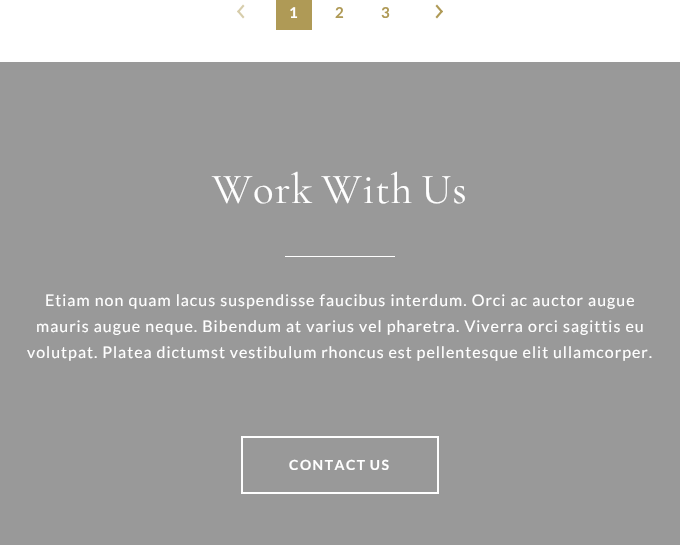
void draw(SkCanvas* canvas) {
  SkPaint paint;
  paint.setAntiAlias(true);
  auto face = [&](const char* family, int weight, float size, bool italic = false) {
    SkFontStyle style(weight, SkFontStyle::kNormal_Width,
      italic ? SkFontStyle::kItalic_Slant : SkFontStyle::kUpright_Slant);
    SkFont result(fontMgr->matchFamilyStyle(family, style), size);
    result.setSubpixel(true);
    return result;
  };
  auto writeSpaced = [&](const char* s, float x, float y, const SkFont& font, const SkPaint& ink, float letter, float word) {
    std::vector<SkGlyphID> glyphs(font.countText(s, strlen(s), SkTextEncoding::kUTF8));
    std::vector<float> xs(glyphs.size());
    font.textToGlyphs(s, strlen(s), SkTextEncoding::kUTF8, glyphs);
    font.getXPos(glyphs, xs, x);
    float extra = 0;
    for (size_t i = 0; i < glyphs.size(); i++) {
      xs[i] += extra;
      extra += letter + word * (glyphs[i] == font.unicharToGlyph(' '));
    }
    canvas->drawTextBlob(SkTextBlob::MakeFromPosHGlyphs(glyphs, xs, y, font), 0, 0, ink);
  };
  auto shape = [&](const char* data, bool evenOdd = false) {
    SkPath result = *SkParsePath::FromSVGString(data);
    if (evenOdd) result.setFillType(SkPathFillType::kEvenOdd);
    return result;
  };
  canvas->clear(0xffffffff);
  paint.setColor(0xffd7cdab);
  canvas->drawPath(shape("M238.5 10L244.5 17L243 18.5L237 11.5Z"), paint);
  canvas->drawPath(shape("M243 4.5L244.5 6L238.5 13L237 11.5Z"), paint);
  paint.setColor(0xffaf9a56);
  canvas->drawRect(SkRect::MakeXYWH(276, 0, 36, 30), paint);
  canvas->drawPath(shape("M441.5 13L435.5 6L437 4.5L443 11.5Z"), paint);
  canvas->drawPath(shape("M437 18.5L435.5 17L441.5 10L443 11.5Z"), paint);
  paint.setColor(0xff999999);
  canvas->drawRect(SkRect::MakeXYWH(0, 62, 680, 483), paint);
  paint.setColor(0xffffffff);
  canvas->drawRect(SkRect::MakeXYWH(285, 256, 110, 1), paint);
  paint.setStroke(true);
  paint.setStrokeWidth(2);
  canvas->drawRect(SkRect::MakeXYWH(242, 437, 196, 56), paint);
  auto f0 = face("Lato", 700, 15);
  paint.setStroke(false);
  writeSpaced("1", 289, 18, f0, paint, 1, 0);
  paint.setColor(0xffaf9a56);
  writeSpaced("2", 335, 18, f0, paint, 1, 0);
  writeSpaced("3", 381, 18, f0, paint, 1, 0);
  auto f1 = face("Cormorant Garamond", 400, 43);
  paint.setColor(0xffffffff);
  writeSpaced("Work With Us", 212, 203, f1, paint, 1, -3);
  auto f2 = face("Lato", 400, 16);
  writeSpaced("Etiam non quam lacus suspendisse faucibus interdum. Orci ac auctor augue", 45, 306, f2, paint, 1, 0);
  writeSpaced("mauris augue neque. Bibendum at varius vel pharetra. Viverra orci sagittis eu", 36, 332, f2, paint, 1, 0);
  writeSpaced("volutpat. Platea dictumst vestibulum rhoncus est pellentesque elit ullamcorper.", 27, 358, f2, paint, 1, -0.25f);
  auto f3 = face("Lato", 700, 14);
  writeSpaced("CONTACT US", 289, 470, f3, paint, 1.5f, -1);
}
